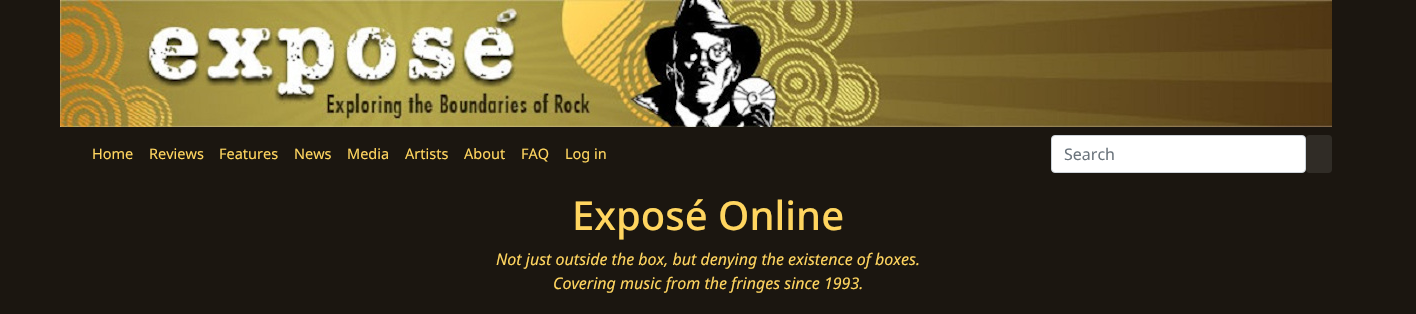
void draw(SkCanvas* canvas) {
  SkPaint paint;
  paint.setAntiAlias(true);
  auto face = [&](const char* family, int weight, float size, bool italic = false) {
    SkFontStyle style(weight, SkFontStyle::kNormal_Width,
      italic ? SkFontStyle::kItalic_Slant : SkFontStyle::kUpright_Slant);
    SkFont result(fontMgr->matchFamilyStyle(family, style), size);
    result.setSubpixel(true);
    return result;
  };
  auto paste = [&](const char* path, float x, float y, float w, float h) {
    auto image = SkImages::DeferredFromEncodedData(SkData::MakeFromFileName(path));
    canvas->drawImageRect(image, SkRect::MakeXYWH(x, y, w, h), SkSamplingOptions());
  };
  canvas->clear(0xff1b1610);
  paste("img/1.png", 60, 0, 1272, 127);
  paint.setColor(0xffffffff);
  canvas->drawRoundRect(SkRect::MakeXYWH(1051.5f, 135.5f, 254, 37), 3.5f, 3.5f, paint);
  paint.setStroke(true);
  paint.setStrokeWidth(1);
  paint.setColor(0xffced4da);
  canvas->drawRoundRect(SkRect::MakeXYWH(1051.5f, 135.5f, 254, 37), 3.5f, 3.5f, paint);
  paint.setStroke(false);
  paint.setColor(0xff302c26);
  canvas->drawRoundRect(SkRect::MakeXYWH(1306, 135, 26, 38), 4, 4, paint);
  auto f0 = face("Noto Sans", 400, 14.5f);
  paint.setColor(0xffffd55f);
  {
    const struct { const char* s; float x, y; } items[] = {
      {"Home", 92, 159},
      {"Reviews", 149, 159},
      {"Features", 219, 159},
      {"News", 294, 159},
      {"Media", 347, 159},
      {"Artists", 405, 159},
      {"About", 464, 159},
      {"FAQ", 521, 159},
      {"Log in", 565, 159},
    };
    for (auto [s, x, y] : items) {
      canvas->drawString(s, x, y, f0, paint);
    }
  }
  auto f1 = face("Noto Sans", 400, 16);
  paint.setColor(0xff6c757d);
  canvas->drawString("Search", 1064, 160, f1, paint);
  auto f2 = face("Noto Sans", 500, 40);
  paint.setColor(0xffffd55f);
  canvas->drawString("Exposé Online", 572, 230, f2, paint);
  auto f3 = face("Noto Sans", 400, 16, true);
  canvas->drawString("Not just outside the box, but denying the existence of boxes.", 496, 265, f3, paint);
  canvas->drawString("Covering music from the fringes since 1993.", 553, 289, f3, paint);
}
